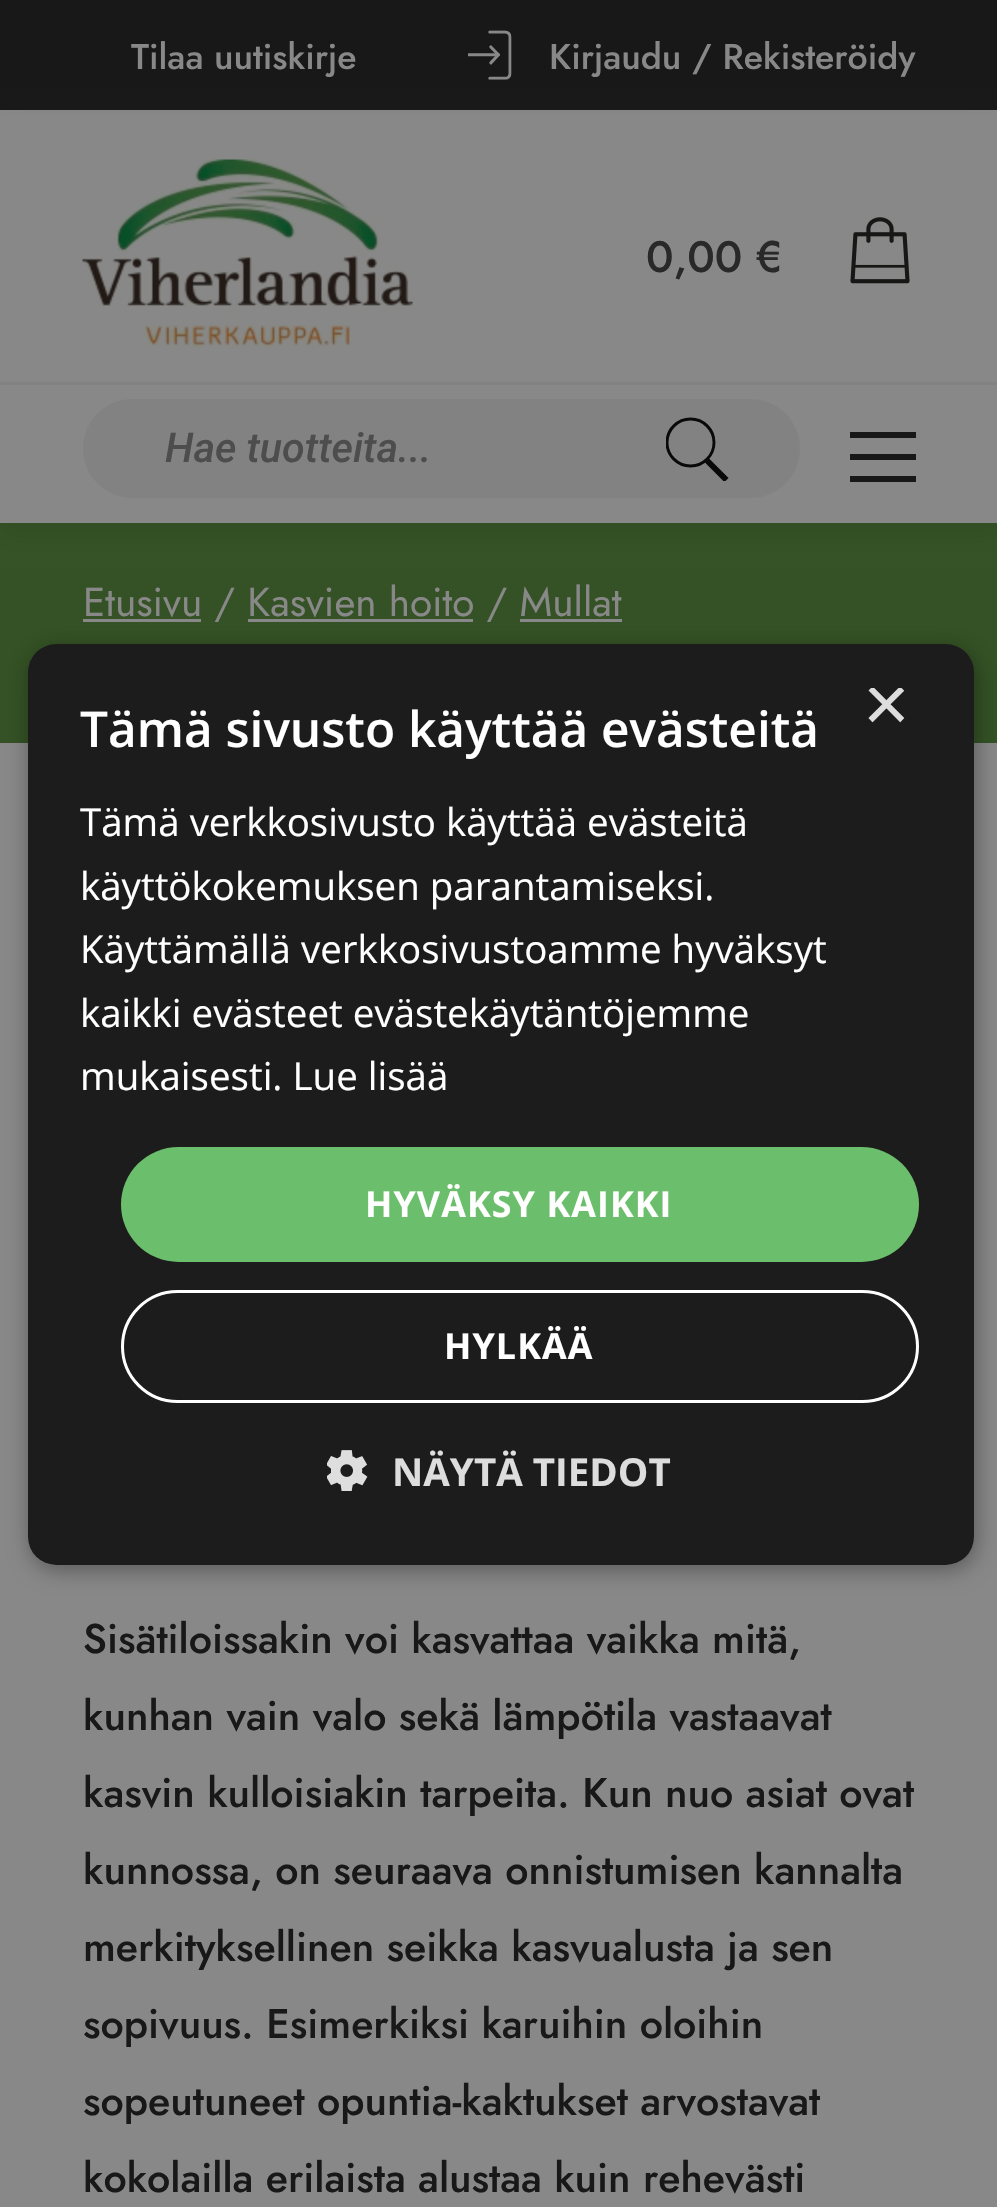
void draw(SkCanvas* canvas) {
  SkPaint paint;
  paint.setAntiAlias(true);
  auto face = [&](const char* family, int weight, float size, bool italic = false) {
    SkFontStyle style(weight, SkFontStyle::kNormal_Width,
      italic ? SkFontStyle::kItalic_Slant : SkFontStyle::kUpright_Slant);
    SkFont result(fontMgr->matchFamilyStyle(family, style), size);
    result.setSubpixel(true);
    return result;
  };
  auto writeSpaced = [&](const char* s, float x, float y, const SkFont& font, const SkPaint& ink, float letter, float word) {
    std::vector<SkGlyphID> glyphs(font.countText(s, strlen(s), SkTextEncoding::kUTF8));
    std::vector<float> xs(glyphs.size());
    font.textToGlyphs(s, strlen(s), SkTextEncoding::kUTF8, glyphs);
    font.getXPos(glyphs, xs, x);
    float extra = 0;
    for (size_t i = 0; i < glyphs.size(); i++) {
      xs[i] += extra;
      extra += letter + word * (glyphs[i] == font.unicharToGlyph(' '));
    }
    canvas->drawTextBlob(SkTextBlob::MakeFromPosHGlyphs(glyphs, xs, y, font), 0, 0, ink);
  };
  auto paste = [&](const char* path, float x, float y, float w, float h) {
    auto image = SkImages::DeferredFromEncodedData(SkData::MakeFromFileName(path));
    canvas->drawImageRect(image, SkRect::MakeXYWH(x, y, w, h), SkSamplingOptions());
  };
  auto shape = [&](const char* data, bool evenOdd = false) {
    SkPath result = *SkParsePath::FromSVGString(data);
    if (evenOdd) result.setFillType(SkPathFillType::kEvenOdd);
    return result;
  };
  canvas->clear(0xff888888);
  paint.setColor(0xff181818);
  canvas->drawRect(SkRect::MakeXYWH(0, 0, 997, 110), paint);
  paste("img/1.png", 468, 30, 44, 50);
  paint.setColor(0xff345225);
  canvas->drawRect(SkRect::MakeXYWH(0, 523, 997, 220), paint);
  paint.setColor(0x14090909);
  paint.setMaskFilter(SkMaskFilter::MakeBlur(kNormal_SkBlurStyle, 11));
  canvas->drawRect(SkRect::MakeXYWH(0, 121, 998, 413), paint);
  paint.setMaskFilter(nullptr);
  paint.setColor(0xff888888);
  canvas->drawRect(SkRect::MakeXYWH(0, 114, 997, 409), paint);
  paste("img/2.png", 82, 159, 331, 189);
  paste("img/3.png", 850, 217, 60, 67);
  paint.setColor(0xff828282);
  canvas->drawRoundRect(SkRect::MakeXYWH(83, 399, 717, 99), 49.5f, 49.5f, paint);
  canvas->save();
  canvas->clipRect(SkRect::MakeXYWH(666, 415, 63, 66));
  paint.setStroke(true);
  paint.setStrokeWidth(2.9f);
  paint.setColor(0xff090909);
  canvas->drawCircle(690.5f, 442.5f, 23.5f, paint);
  paint.setStrokeWidth(5.9f);
  canvas->drawPath(shape("M707 460.5L726.5 480"), paint);
  canvas->restore();
  paint.setStroke(false);
  {
    const struct { float x, y, w, h; SkColor color; } items[] = {
      {850, 432, 66, 6, 0xff181818},
      {850, 454, 66, 6, 0xff181818},
      {850, 476, 66, 6, 0xff181818},
      {0, 382, 997, 3, 0xff828282},
      {83, 619, 118, 3, 0xff888888},
      {248, 619, 225, 3, 0xff888888},
      {520, 619, 102, 3, 0xff888888},
    };
    for (auto [x, y, w, h, color] : items) {
      paint.setColor(color);
      canvas->drawRect(SkRect::MakeXYWH(x, y, w, h), paint);
    }
  }
  canvas->save();
  canvas->clipPath(shape("M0 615H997V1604H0ZM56 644H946C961.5 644 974 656.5 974 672V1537C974 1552.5 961.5 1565 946 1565H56C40.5 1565 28 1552.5 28 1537V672C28 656.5 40.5 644 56 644Z", true), true);
  paint.setColor(0x59000000);
  paint.setMaskFilter(SkMaskFilter::MakeBlur(kNormal_SkBlurStyle, 11));
  canvas->drawRoundRect(SkRect::MakeXYWH(30, 649, 946, 921), 28, 28, paint);
  paint.setMaskFilter(nullptr);
  canvas->restore();
  paint.setColor(0xff1c1c1c);
  canvas->drawRoundRect(SkRect::MakeXYWH(28, 644, 946, 921), 28, 28, paint);
  paint.setColor(0xff6bbe6b);
  canvas->drawRoundRect(SkRect::MakeXYWH(121, 1147, 798, 115), 57.5f, 57.5f, paint);
  paint.setStroke(true);
  paint.setStrokeWidth(3);
  paint.setColor(0xffffffff);
  canvas->drawRoundRect(SkRect::MakeXYWH(122.5f, 1291.5f, 795, 110), 55, 55, paint);
  paste("img/4.png", 327, 1450, 41, 41);
  auto f0 = face("Jost", 500, 35.75f);
  paint.setStroke(false);
  paint.setColor(0xff888888);
  canvas->drawString("Tilaa uutiskirje", 131, 69, f0, paint);
  canvas->drawString("Kirjaudu / Rekisteröidy", 549, 69, f0, paint);
  auto f1 = face("Jost", 500, 44);
  paint.setColor(0xff292929);
  canvas->drawString("0,00 €", 646, 272, f1, paint);
  auto f2 = face("Roboto", 500, 41.25f, true);
  paint.setColor(0xff4d4d4d);
  canvas->drawString("Hae tuotteita...", 165, 462, f2, paint);
  auto f3 = face("Jost", 400, 40.5f);
  paint.setColor(0xff888888);
  canvas->drawString("Etusivu / Kasvien hoito / Mullat", 83, 616, f3, paint);
  auto f4 = face("Jost", 500, 41.25f);
  paint.setColor(0xff181818);
  {
    const struct { const char* s; float x, y; } items[] = {
      {"Sisätiloissakin voi kasvattaa vaikka mitä,", 83, 1653},
      {"kunhan vain valo sekä lämpötila vastaavat", 83, 1730},
      {"kasvin kulloisiakin tarpeita. Kun nuo asiat ovat", 83, 1807},
      {"kunnossa, on seuraava onnistumisen kannalta", 83, 1884},
      {"merkityksellinen seikka kasvualusta ja sen", 83, 1961},
      {"sopivuus. Esimerkiksi karuihin oloihin", 83, 2038},
      {"sopeutuneet opuntia-kaktukset arvostavat", 83, 2115},
      {"kokolailla erilaista alustaa kuin rehevästi", 83, 2192},
    };
    for (auto [s, x, y] : items) {
      canvas->drawString(s, x, y, f4, paint);
    }
  }
  canvas->save();
  canvas->clipRect(SkRect::MakeXYWH(864, 688, 41, 41));
  auto f5 = face("Liberation Sans", 400, 80);
  paint.setColor(0xffdddddd);
  canvas->drawString("×", 863, 731, f5, paint);
  canvas->restore();
  auto f6 = face("Open Sans", 600, 49.5f);
  paint.setColor(0xffffffff);
  canvas->drawString("Tämä sivusto käyttää evästeitä", 80, 747, f6, paint);
  auto f7 = face("Open Sans", 400, 38.5f);
  {
    const struct { const char* s; float x, y; } items[] = {
      {"Tämä verkkosivusto käyttää evästeitä", 80, 836},
      {"käyttökokemuksen parantamiseksi.", 80, 900},
      {"Käyttämällä verkkosivustoamme hyväksyt", 80, 963},
      {"kaikki evästeet evästekäytäntöjemme", 80, 1027},
      {"mukaisesti. Lue lisää", 80, 1090},
    };
    for (auto [s, x, y] : items) {
      canvas->drawString(s, x, y, f7, paint);
    }
  }
  auto f8 = face("Open Sans", 700, 35.75f);
  writeSpaced("HYVÄKSY KAIKKI", 365, 1217, f8, paint, 1.1f, 0);
  writeSpaced("HYLKÄÄ", 444, 1359, f8, paint, 1.1f, 0);
  auto f9 = face("Open Sans", 700, 38.5f);
  paint.setColor(0xffdddddd);
  canvas->drawString("NÄYTÄ TIEDOT", 392, 1486, f9, paint);
}
